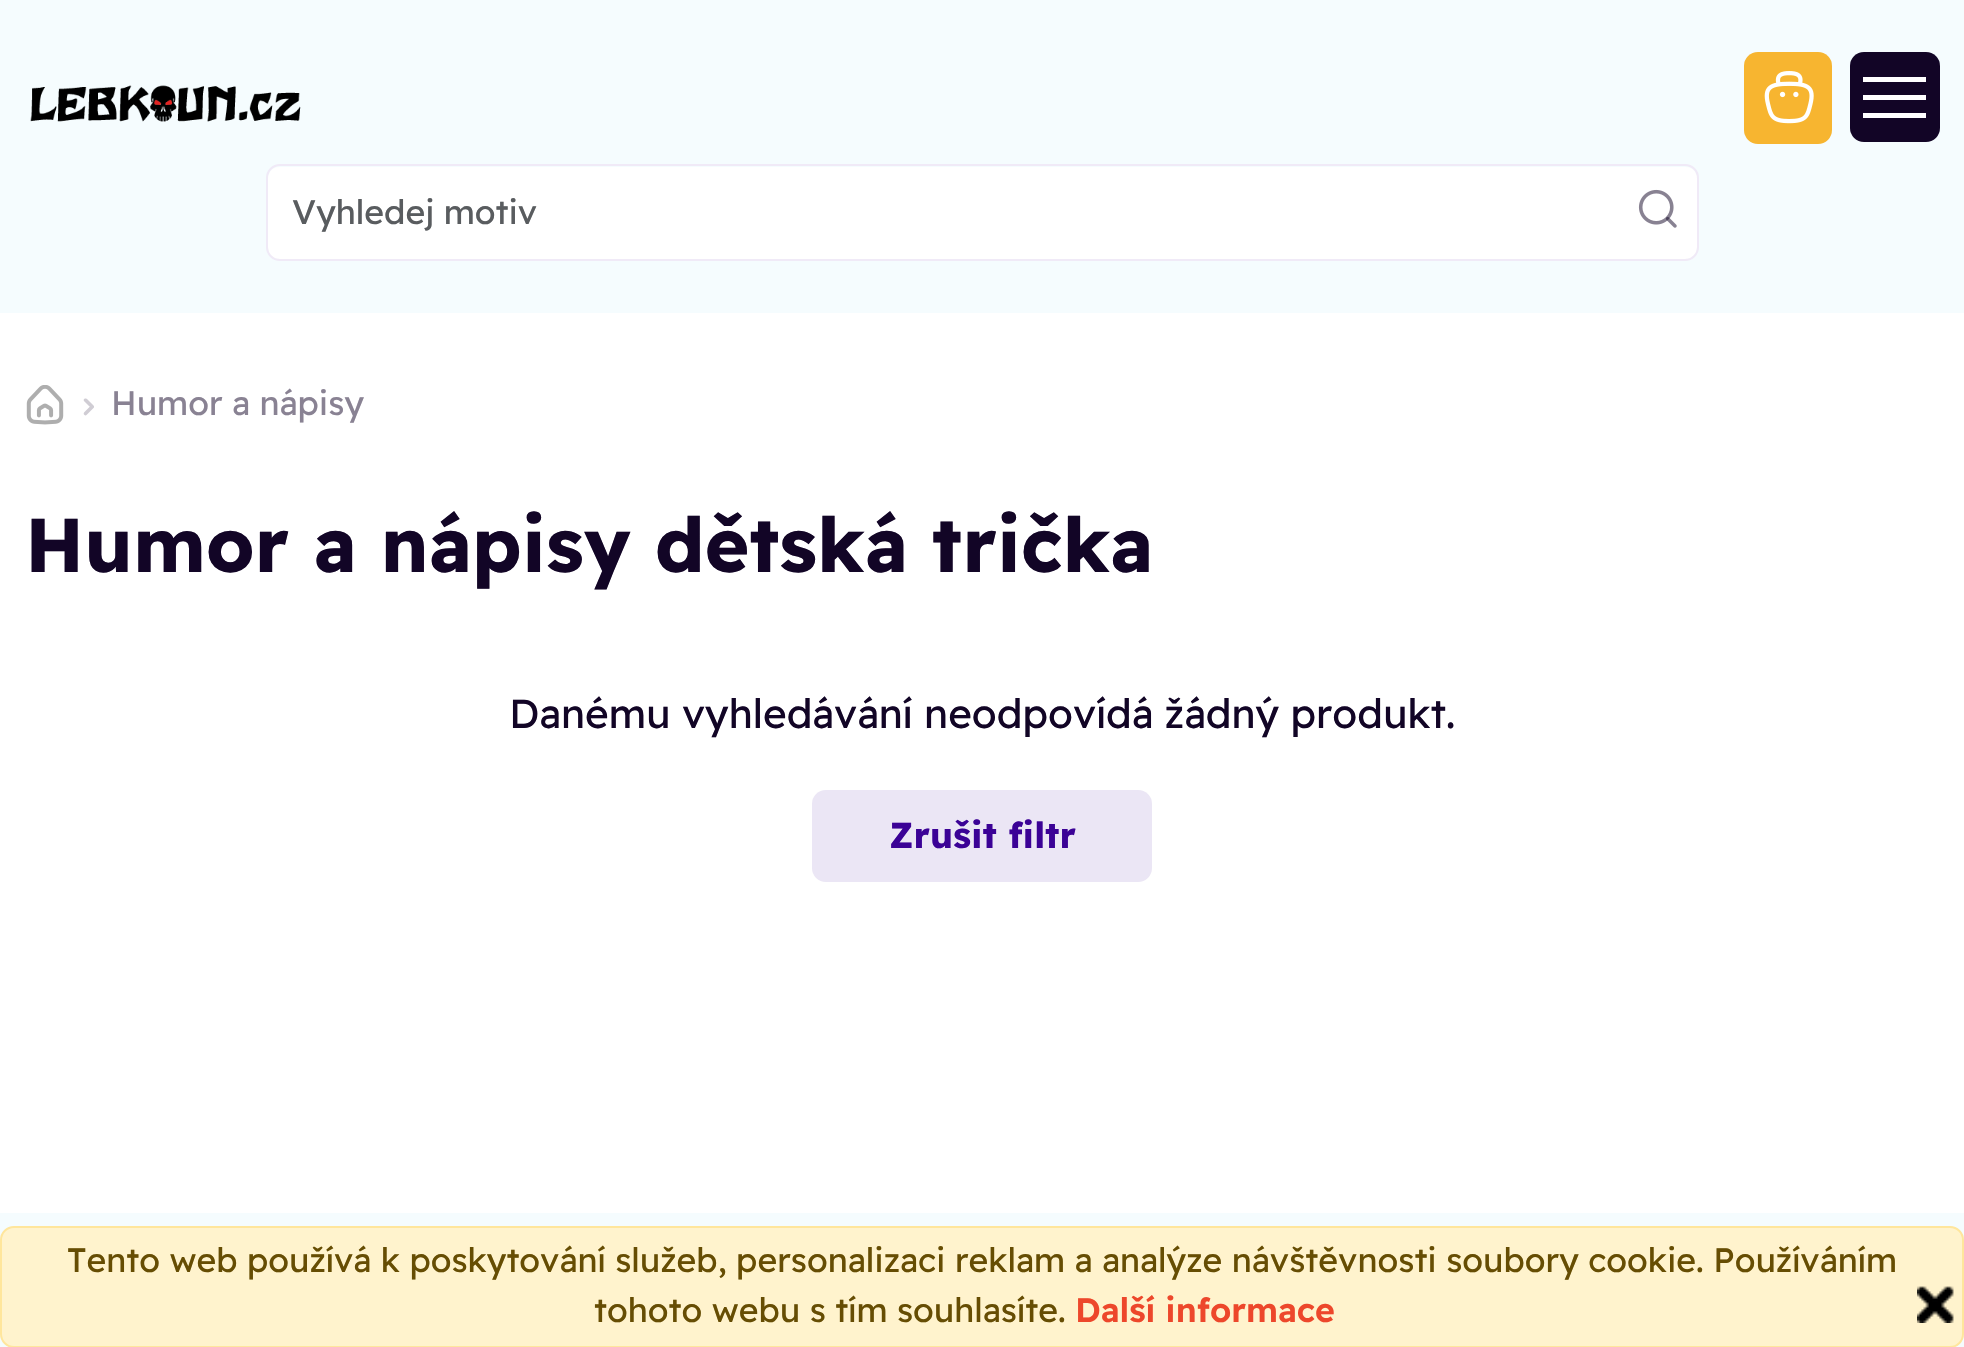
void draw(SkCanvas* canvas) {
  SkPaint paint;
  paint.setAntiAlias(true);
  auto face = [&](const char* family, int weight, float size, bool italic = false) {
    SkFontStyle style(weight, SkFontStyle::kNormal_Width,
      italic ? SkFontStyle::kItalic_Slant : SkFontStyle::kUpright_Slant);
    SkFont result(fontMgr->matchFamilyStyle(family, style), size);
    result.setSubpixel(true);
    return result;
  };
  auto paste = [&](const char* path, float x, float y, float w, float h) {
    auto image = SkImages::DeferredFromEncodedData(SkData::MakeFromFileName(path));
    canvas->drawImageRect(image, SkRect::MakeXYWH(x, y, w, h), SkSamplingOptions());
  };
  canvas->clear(0xffffffff);
  paint.setColor(0xfff5fcfe);
  canvas->drawRect(SkRect::MakeXYWH(0, 0, 1964, 313), paint);
  paste("img/1.png", 30, 85, 271, 37);
  paint.setColor(0xfff7b530);
  canvas->drawRoundRect(SkRect::MakeXYWH(1744, 52, 88, 92), 14, 14, paint);
  paste("img/2.png", 1764, 71, 50, 53);
  paint.setColor(0xff120526);
  canvas->drawRoundRect(SkRect::MakeXYWH(1850, 52, 90, 90), 14, 14, paint);
  {
    const struct { float x, y, w, h; SkColor color; } items[] = {
      {1863, 77, 63, 5, 0xffffffff},
      {1863, 95, 63, 5, 0xffffffff},
      {1863, 113, 63, 5, 0xffffffff},
    };
    for (auto [x, y, w, h, color] : items) {
      paint.setColor(color);
      canvas->drawRect(SkRect::MakeXYWH(x, y, w, h), paint);
    }
  }
  canvas->drawRoundRect(SkRect::MakeXYWH(268, 167, 1429, 92), 11, 11, paint);
  paint.setStroke(true);
  paint.setStrokeWidth(2);
  paint.setColor(0xfff0eaf7);
  canvas->drawRoundRect(SkRect::MakeXYWH(267, 165, 1431, 95), 13, 13, paint);
  paste("img/3.png", 1638, 189, 39, 39);
  paint.setStroke(false);
  paint.setColor(0xfff5fcfe);
  canvas->drawRect(SkRect::MakeXYWH(0, 1213, 1964, 134), paint);
  paint.setColor(0xfffff3cd);
  canvas->drawRoundRect(SkRect::MakeXYWH(1, 1227, 1962, 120), 13, 13, paint);
  paint.setStroke(true);
  paint.setColor(0xffffe69c);
  canvas->drawRoundRect(SkRect::MakeXYWH(1, 1227, 1962, 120), 13, 13, paint);
  paste("img/4.png", 1917, 1286, 37, 37);
  paste("img/5.png", 26, 385, 38, 40);
  paste("img/6.png", 83, 398, 11, 18);
  paint.setStroke(false);
  paint.setColor(0xffebe6f5);
  canvas->drawRoundRect(SkRect::MakeXYWH(812, 790, 340, 92), 14, 14, paint);
  auto f0 = face("Readex Pro", 400, 33.75f);
  paint.setColor(0xff595c5f);
  canvas->drawString("Vyhledej motiv", 292, 224, f0, paint);
  paint.setColor(0xff664d03);
  canvas->drawString("Tento web používá k poskytování služeb, personalizaci reklam a analýze návštěvnosti soubory cookie. Používáním", 67, 1272, f0, paint);
  canvas->drawString("tohoto webu s tím souhlasíte.", 594, 1322, f0, paint);
  auto f1 = face("Readex Pro", 600, 33.75f);
  paint.setColor(0xffed472b);
  canvas->drawString("Další informace", 1075, 1322, f1, paint);
  paint.setColor(0xff898293);
  canvas->drawString("Humor a nápisy", 111, 415, f0, paint);
  auto f2 = face("Readex Pro", 700, 75.9f);
  paint.setColor(0xff120526);
  canvas->drawString("Humor a nápisy dětská trička", 25, 572, f2, paint);
  auto f3 = face("Readex Pro", 400, 40.5f);
  canvas->drawString("Danému vyhledávání neodpovídá žádný produkt.", 509, 728, f3, paint);
  auto f4 = face("Readex Pro", 700, 36);
  paint.setColor(0xff3b0296);
  canvas->drawString("Zrušit filtr", 889, 848, f4, paint);
}
